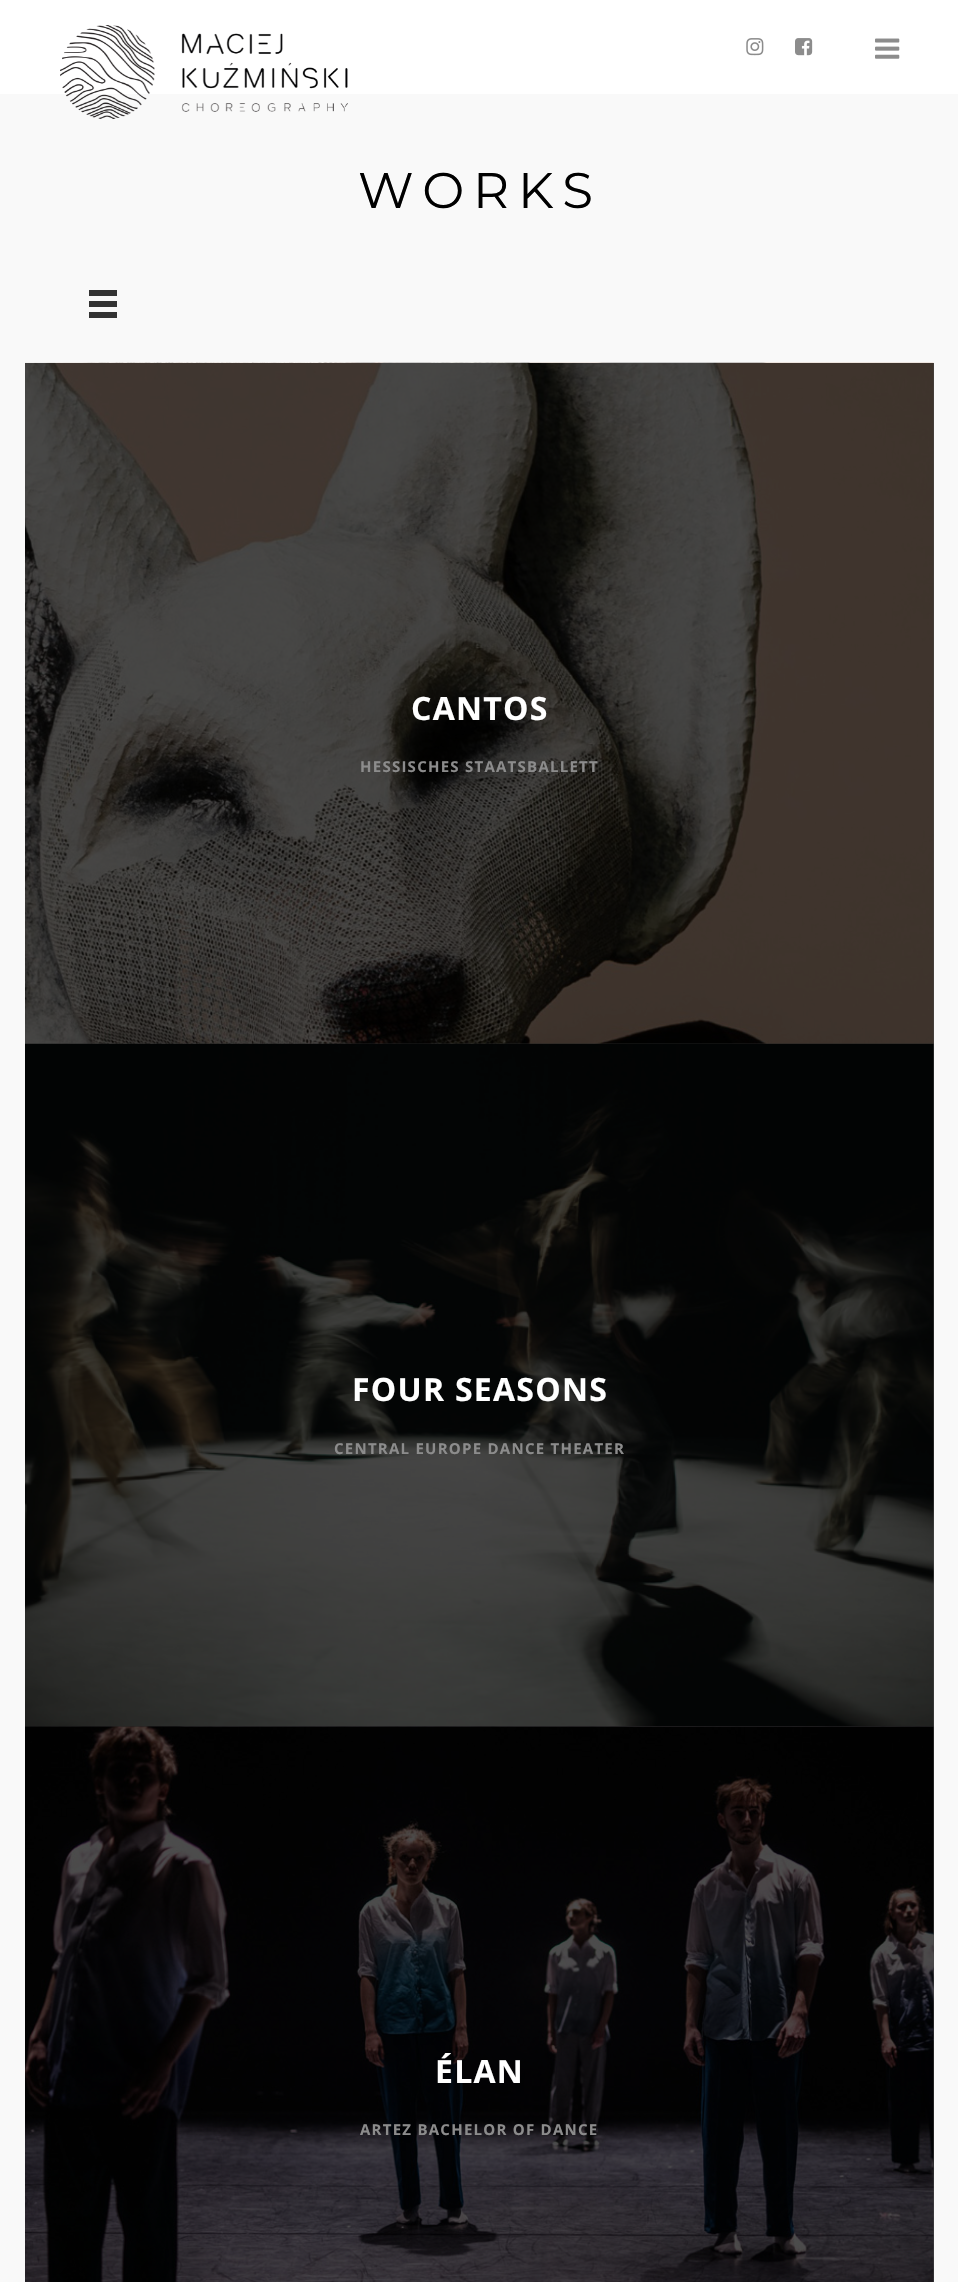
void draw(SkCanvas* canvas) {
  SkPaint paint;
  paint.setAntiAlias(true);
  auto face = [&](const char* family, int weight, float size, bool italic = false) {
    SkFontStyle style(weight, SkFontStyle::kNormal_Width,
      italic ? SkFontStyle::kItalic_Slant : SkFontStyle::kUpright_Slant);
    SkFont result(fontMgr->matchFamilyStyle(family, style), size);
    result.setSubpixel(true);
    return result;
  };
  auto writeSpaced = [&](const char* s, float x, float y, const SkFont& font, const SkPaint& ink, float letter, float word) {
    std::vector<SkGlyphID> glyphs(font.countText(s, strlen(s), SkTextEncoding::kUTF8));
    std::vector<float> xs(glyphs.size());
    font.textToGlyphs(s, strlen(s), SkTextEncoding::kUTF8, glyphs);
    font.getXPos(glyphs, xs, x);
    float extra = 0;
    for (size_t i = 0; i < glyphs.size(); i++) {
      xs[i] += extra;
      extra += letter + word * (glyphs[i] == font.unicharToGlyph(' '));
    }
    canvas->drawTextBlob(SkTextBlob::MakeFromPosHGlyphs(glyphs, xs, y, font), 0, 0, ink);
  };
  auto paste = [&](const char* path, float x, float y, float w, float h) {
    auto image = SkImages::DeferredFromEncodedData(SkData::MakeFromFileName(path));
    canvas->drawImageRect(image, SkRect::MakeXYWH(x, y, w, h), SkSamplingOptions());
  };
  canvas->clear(0xfff9f9f9);
  paint.setColor(0xff4b4b4b);
  canvas->drawRect(SkRect::MakeXYWH(933, 1044, 1, 682), paint);
  paint.setColor(0xffffffff);
  canvas->drawRect(SkRect::MakeXYWH(0, 0, 958, 94), paint);
  paste("img/1.png", 60, 25, 288, 94);
  paste("img/2.png", 746, 38, 18, 18);
  paste("img/3.png", 795, 38, 18, 18);
  paste("img/4.png", 875, 38, 25, 21);
  {
    const struct { float x, y, w, h; SkColor color; } items[] = {
      {89, 290, 28, 6, 0xff333333},
      {89, 301, 28, 6, 0xff333333},
      {89, 312, 28, 6, 0xff333333},
    };
    for (auto [x, y, w, h, color] : items) {
      paint.setColor(color);
      canvas->drawRect(SkRect::MakeXYWH(x, y, w, h), paint);
    }
  }
  paste("img/5.png", 25, 362, 909, 682);
  paste("img/6.png", 25, 1043, 909, 684);
  paint.setColor(0xb3000000);
  canvas->drawRect(SkRect::MakeXYWH(25, 363, 909, 681), paint);
  paste("img/7.png", 25, 1726, 909, 556);
  canvas->drawRect(SkRect::MakeXYWH(25, 1726, 909, 556), paint);
  auto f0 = face("Montserrat", 100, 50);
  paint.setColor(0xff000000);
  writeSpaced("WORKS", 358, 208, f0, paint, 8.75f, 0);
  auto f1 = face("Open Sans", 700, 32);
  paint.setColor(0xffffffff);
  writeSpaced("CANTOS", 411, 720, f1, paint, 1.25f, 0);
  auto f2 = face("Open Sans", 700, 15);
  paint.setColor(0xff8c8c8c);
  writeSpaced("HESSISCHES STAATSBALLETT", 360, 772, f2, paint, 1.25f, 0);
  paint.setColor(0xffffffff);
  writeSpaced("FOUR SEASONS", 352, 1401, f1, paint, 1.25f, 0);
  paint.setColor(0xff8c8c8c);
  writeSpaced("CENTRAL EUROPE DANCE THEATER", 334, 1454, f2, paint, 1.25f, 0);
  paint.setColor(0xffffffff);
  writeSpaced("ÉLAN", 435, 2083, f1, paint, 1.25f, 0);
  paint.setColor(0xff8c8c8c);
  writeSpaced("ARTEZ BACHELOR OF DANCE", 360, 2135, f2, paint, 1.25f, 0);
}
